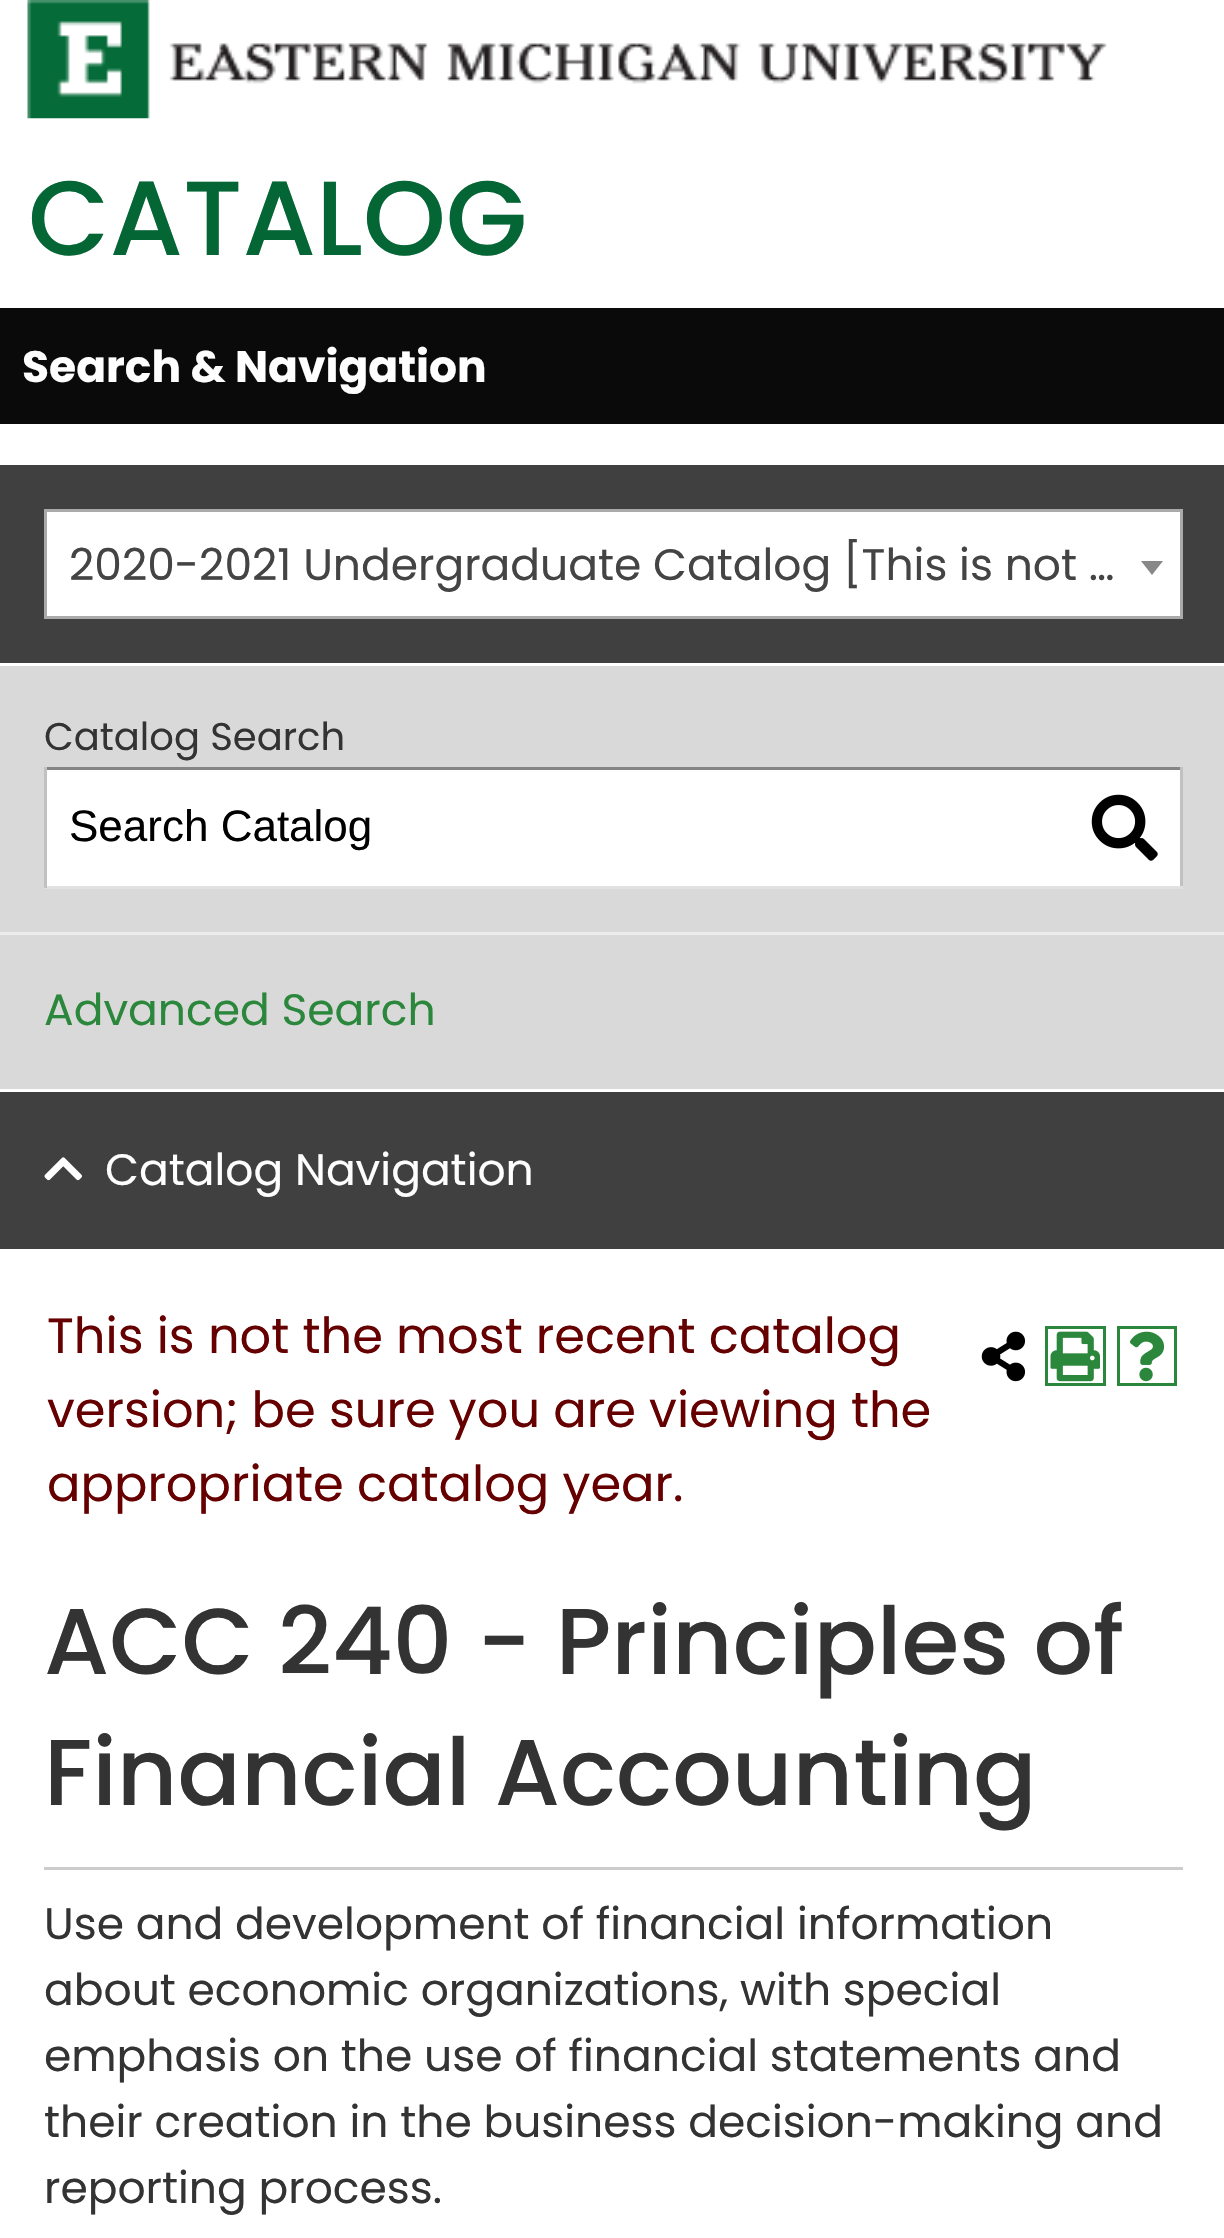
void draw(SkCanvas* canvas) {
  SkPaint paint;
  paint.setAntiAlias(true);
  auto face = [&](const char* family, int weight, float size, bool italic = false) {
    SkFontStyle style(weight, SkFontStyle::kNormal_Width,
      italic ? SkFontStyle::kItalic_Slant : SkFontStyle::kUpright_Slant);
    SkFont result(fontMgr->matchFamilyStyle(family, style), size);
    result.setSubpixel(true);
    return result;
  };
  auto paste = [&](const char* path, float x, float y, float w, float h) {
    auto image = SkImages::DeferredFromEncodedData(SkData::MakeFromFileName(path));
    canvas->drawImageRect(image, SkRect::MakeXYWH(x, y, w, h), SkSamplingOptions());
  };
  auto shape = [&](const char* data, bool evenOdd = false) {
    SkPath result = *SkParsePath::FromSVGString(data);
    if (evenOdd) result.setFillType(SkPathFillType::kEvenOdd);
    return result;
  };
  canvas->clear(0xffffffff);
  paste("img/1.png", 27, 0, 1080, 119);
  paint.setColor(0xff0a0a0a);
  canvas->drawRect(SkRect::MakeXYWH(0, 308, 1224, 116), paint);
  paint.setColor(0xff404040);
  canvas->drawRect(SkRect::MakeXYWH(0, 465, 1224, 198), paint);
  paint.setColor(0xffffffff);
  canvas->drawRect(SkRect::MakeXYWH(45.5f, 510.5f, 1136, 107), paint);
  paint.setStroke(true);
  paint.setStrokeWidth(3);
  paint.setColor(0xffaaaaaa);
  canvas->drawRect(SkRect::MakeXYWH(45.5f, 510.5f, 1136, 107), paint);
  paint.setStroke(false);
  paint.setColor(0xff888888);
  canvas->drawPath(shape("M1141 561H1163L1152 575Z"), paint);
  {
    const struct { float x, y, w, h; SkColor color; } items[] = {
      {0, 666, 1224, 423, 0xffd9d9d9},
      {47, 770, 1133, 116, 0xffffffff},
      {44, 767, 1139, 3, 0xff848484},
      {1180, 767, 3, 121, 0xffc1c1c1},
      {44, 886, 1139, 3, 0xffe1e1e1},
      {44, 767, 3, 121, 0xffc1c1c1},
    };
    for (auto [x, y, w, h, color] : items) {
      paint.setColor(color);
      canvas->drawRect(SkRect::MakeXYWH(x, y, w, h), paint);
    }
  }
  paste("img/2.png", 1091, 794, 67, 67);
  paint.setColor(0xffececec);
  canvas->drawRect(SkRect::MakeXYWH(0, 932, 1224, 3), paint);
  paint.setColor(0xff404040);
  canvas->drawRect(SkRect::MakeXYWH(0, 1092, 1224, 157), paint);
  paste("img/3.png", 44, 1157, 38, 24);
  paste("img/4.png", 981, 1331, 45, 51);
  paint.setStroke(true);
  paint.setColor(0xff2b873b);
  canvas->drawRect(SkRect::MakeXYWH(1046.5f, 1327.5f, 58, 57), paint);
  paste("img/5.png", 1050, 1331, 50, 51);
  canvas->drawRect(SkRect::MakeXYWH(1118.5f, 1327.5f, 57, 57), paint);
  paste("img/6.png", 1130, 1331, 35, 51);
  paint.setStroke(false);
  paint.setColor(0xffcccccc);
  canvas->drawRect(SkRect::MakeXYWH(44, 1867, 1139, 3), paint);
  auto f0 = face("Poppins", 500, 105.5f);
  paint.setColor(0xff046535);
  canvas->drawString("CATALOG", 28, 255, f0, paint);
  auto f1 = face("Poppins", 700, 44);
  paint.setColor(0xfffefefe);
  canvas->drawString("Search & Navigation", 22, 382, f1, paint);
  auto f2 = face("Poppins", 400, 44);
  paint.setColor(0xff444444);
  canvas->drawString("2020-2021 Undergraduate Catalog [This is not …", 69, 580, f2, paint);
  auto f3 = face("Poppins", 400, 38.5f);
  paint.setColor(0xff333333);
  canvas->drawString("Catalog Search", 44, 750, f3, paint);
  auto f4 = face("Liberation Sans", 400, 44);
  paint.setColor(0xff000000);
  canvas->drawString("Search Catalog", 69, 841, f4, paint);
  paint.setColor(0xff2b873b);
  canvas->drawString("Advanced Search", 44, 1025, f2, paint);
  paint.setColor(0xfffefefe);
  canvas->drawString("Catalog Navigation", 105, 1185, f2, paint);
  auto f5 = face("Poppins", 400, 49.5f);
  paint.setColor(0xff660000);
  {
    const struct { const char* s; float x, y; } items[] = {
      {"This is not the most recent catalog", 47, 1353},
      {"version; be sure you are viewing the", 47, 1427},
      {"appropriate catalog year.", 47, 1501},
    };
    for (auto [s, x, y] : items) {
      canvas->drawString(s, x, y, f5, paint);
    }
  }
  auto f6 = face("Poppins", 500, 93.5f);
  paint.setColor(0xff333333);
  canvas->drawString("ACC 240 - Principles of", 44, 1674, f6, paint);
  canvas->drawString("Financial Accounting", 44, 1805, f6, paint);
  {
    const struct { const char* s; float x, y; } items[] = {
      {"Use and development of financial information", 44, 1939},
      {"about economic organizations, with special", 44, 2005},
      {"emphasis on the use of financial statements and", 44, 2071},
      {"their creation in the business decision-making and", 44, 2137},
      {"reporting process.", 44, 2203},
    };
    for (auto [s, x, y] : items) {
      canvas->drawString(s, x, y, f2, paint);
    }
  }
}
